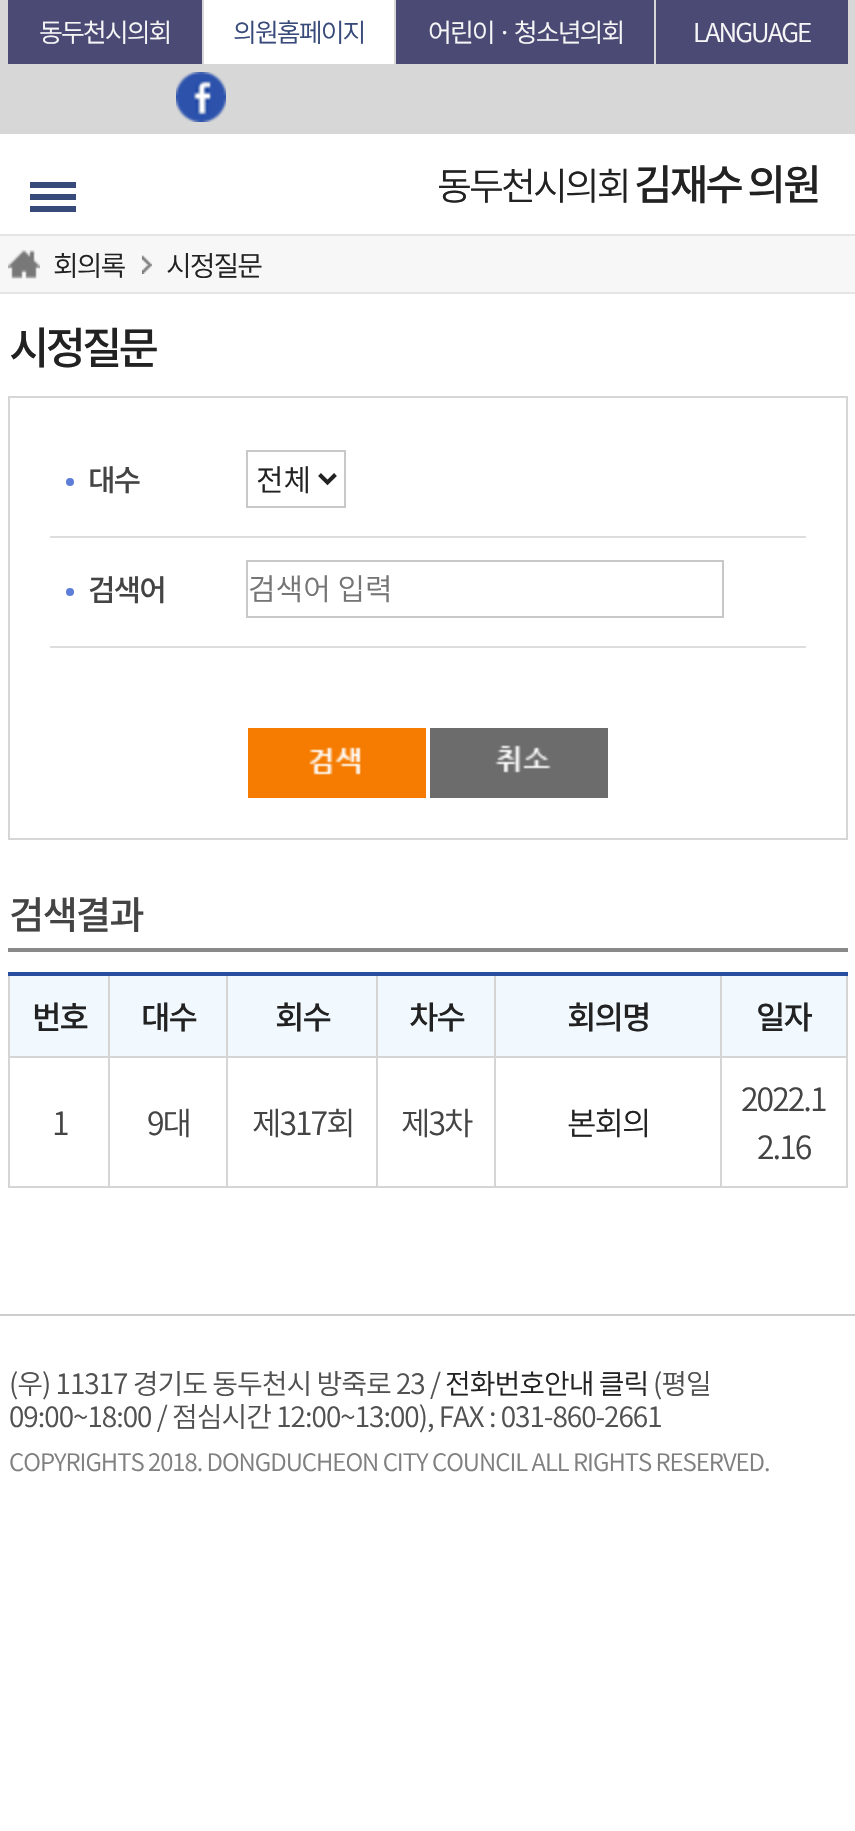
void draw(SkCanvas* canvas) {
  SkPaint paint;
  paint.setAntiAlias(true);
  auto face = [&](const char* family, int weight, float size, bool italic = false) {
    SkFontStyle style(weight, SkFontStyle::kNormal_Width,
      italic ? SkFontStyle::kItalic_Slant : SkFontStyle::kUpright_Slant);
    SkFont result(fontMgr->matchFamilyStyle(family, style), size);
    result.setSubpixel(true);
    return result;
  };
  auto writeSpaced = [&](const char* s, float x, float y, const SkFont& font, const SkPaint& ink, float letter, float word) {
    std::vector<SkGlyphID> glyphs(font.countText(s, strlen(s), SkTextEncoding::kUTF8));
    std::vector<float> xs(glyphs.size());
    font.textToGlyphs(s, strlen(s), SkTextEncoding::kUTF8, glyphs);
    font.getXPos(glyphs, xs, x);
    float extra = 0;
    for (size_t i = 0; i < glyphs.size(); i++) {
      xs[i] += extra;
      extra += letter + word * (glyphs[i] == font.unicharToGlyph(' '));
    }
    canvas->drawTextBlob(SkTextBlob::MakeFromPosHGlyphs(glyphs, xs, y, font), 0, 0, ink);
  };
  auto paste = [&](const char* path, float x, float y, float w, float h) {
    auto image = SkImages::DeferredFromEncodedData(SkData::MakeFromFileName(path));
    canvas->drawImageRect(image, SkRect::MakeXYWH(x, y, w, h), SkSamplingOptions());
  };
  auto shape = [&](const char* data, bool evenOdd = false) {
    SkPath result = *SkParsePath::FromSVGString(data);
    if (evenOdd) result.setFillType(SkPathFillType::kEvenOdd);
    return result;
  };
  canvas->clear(0xffffffff);
  {
    const struct { float x, y, w, h; SkColor color; } items[] = {
      {0, 0, 855, 134, 0xffd7d7d7},
      {8, 0, 194, 64, 0xff4b4a74},
      {204, 0, 190, 64, 0xffffffff},
      {396, 0, 258, 64, 0xff4b4a74},
      {656, 0, 192, 64, 0xff4b4a74},
    };
    for (auto [x, y, w, h, color] : items) {
      paint.setColor(color);
      canvas->drawRect(SkRect::MakeXYWH(x, y, w, h), paint);
    }
  }
  paste("img/1.png", 176, 72, 50, 50);
  {
    const struct { float x, y, w, h; SkColor color; } items[] = {
      {30, 182, 46, 6, 0xff384a7a},
      {30, 194, 46, 6, 0xff384a7a},
      {30, 206, 46, 6, 0xff384a7a},
      {0, 236, 855, 56, 0xfff7f7f7},
      {0, 234, 855, 2, 0xffe5e5e5},
      {0, 292, 855, 2, 0xffe5e5e5},
    };
    for (auto [x, y, w, h, color] : items) {
      paint.setColor(color);
      canvas->drawRect(SkRect::MakeXYWH(x, y, w, h), paint);
    }
  }
  paste("img/2.png", 8, 250, 32, 29);
  paste("img/3.png", 142, 255, 10, 19);
  paint.setStroke(true);
  paint.setStrokeWidth(2);
  paint.setColor(0xffd6d6d6);
  canvas->drawRect(SkRect::MakeXYWH(9, 397, 838, 442), paint);
  paint.setStroke(false);
  paint.setColor(0xffdddddd);
  canvas->drawRect(SkRect::MakeXYWH(50, 536, 756, 2), paint);
  paint.setColor(0xff5e7dda);
  canvas->drawCircle(70, 482, 4, paint);
  paint.setStroke(true);
  paint.setColor(0xffc8c8ca);
  canvas->drawRect(SkRect::MakeXYWH(247, 451, 98, 56), paint);
  paint.setStrokeWidth(4);
  paint.setColor(0xff222222);
  canvas->drawPath(shape("M319.5 474.5L327.5 482.5L335.5 474.5"), paint);
  paint.setStroke(false);
  paint.setColor(0xffdddddd);
  canvas->drawRect(SkRect::MakeXYWH(50, 646, 756, 2), paint);
  paint.setColor(0xff5e7dda);
  canvas->drawCircle(70, 592, 4, paint);
  paint.setStroke(true);
  paint.setStrokeWidth(2);
  paint.setColor(0xffc8c8ca);
  canvas->drawRect(SkRect::MakeXYWH(247, 561, 476, 56), paint);
  paste("img/4.png", 248, 728, 178, 70);
  paste("img/5.png", 430, 728, 178, 70);
  paint.setStroke(false);
  {
    const struct { float x, y, w, h; SkColor color; } items[] = {
      {8, 948, 840, 4, 0xff898989},
      {720, 1056, 128, 2, 0xffd5d5d5},
      {846, 972, 2, 216, 0xffd5d5d5},
      {720, 1186, 128, 2, 0xffd5d5d5},
      {720, 1056, 2, 132, 0xffd5d5d5},
      {494, 1056, 228, 2, 0xffd5d5d5},
      {494, 1186, 228, 2, 0xffd5d5d5},
      {494, 1056, 2, 132, 0xffd5d5d5},
      {376, 1056, 120, 2, 0xffd5d5d5},
      {376, 1186, 120, 2, 0xffd5d5d5},
      {376, 1056, 2, 132, 0xffd5d5d5},
      {226, 1056, 152, 2, 0xffd5d5d5},
      {226, 1186, 152, 2, 0xffd5d5d5},
      {226, 1056, 2, 132, 0xffd5d5d5},
      {108, 1056, 120, 2, 0xffd5d5d5},
      {108, 1186, 120, 2, 0xffd5d5d5},
      {108, 1056, 2, 132, 0xffd5d5d5},
      {8, 1056, 102, 2, 0xffd5d5d5},
      {108, 972, 2, 86, 0xffd5d5d5},
      {226, 972, 2, 86, 0xffd5d5d5},
      {376, 972, 2, 86, 0xffd5d5d5},
      {494, 972, 2, 86, 0xffd5d5d5},
      {720, 972, 2, 86, 0xffd5d5d5},
      {8, 1186, 102, 2, 0xffd5d5d5},
      {8, 972, 2, 216, 0xffd5d5d5},
      {8, 972, 840, 4, 0xff2a4e9f},
      {10, 976, 98, 80, 0xfff1f9ff},
      {110, 976, 116, 80, 0xfff1f9ff},
      {228, 976, 148, 80, 0xfff1f9ff},
      {378, 976, 116, 80, 0xfff1f9ff},
      {496, 976, 224, 80, 0xfff1f9ff},
      {722, 976, 124, 80, 0xfff1f9ff},
      {0, 1314, 855, 2, 0xffcdcdcd},
    };
    for (auto [x, y, w, h, color] : items) {
      paint.setColor(color);
      canvas->drawRect(SkRect::MakeXYWH(x, y, w, h), paint);
    }
  }
  auto f0 = face("Noto Sans KR", 300, 26);
  paint.setColor(0xfff6f6f7);
  writeSpaced("동두천시의회", 39, 42, f0, paint, -2, 0);
  paint.setColor(0xff384a7a);
  writeSpaced("의원홈페이지", 233, 42, f0, paint, -2, 0);
  paint.setColor(0xfff6f6f7);
  writeSpaced("어린이 · 청소년의회", 428, 42, f0, paint, -2, 0);
  writeSpaced("LANGUAGE", 693, 42, f0, paint, -2, 0);
  auto f1 = face("Noto Sans KR", 300, 38);
  paint.setColor(0xff222222);
  writeSpaced("동두천시의회", 437, 200, f1, paint, -3, 0);
  auto f2 = face("Noto Sans KR", 500, 42);
  writeSpaced("김재수 의원", 634, 200, f2, paint, -3, 0);
  auto f3 = face("Noto Sans KR", 300, 28);
  writeSpaced("회의록", 53, 276, f3, paint, -2, 0);
  writeSpaced("시정질문", 166, 276, f3, paint, -2, 0);
  auto f4 = face("Noto Sans KR", 500, 44);
  writeSpaced("시정질문", 9, 364, f4, paint, -4, 0);
  auto f5 = face("Noto Sans KR", 500, 30);
  paint.setColor(0xff444444);
  writeSpaced("대수", 88, 491, f5, paint, -2, 0);
  auto f6 = face("Noto Sans KR", 300, 30);
  paint.setColor(0xff222222);
  canvas->drawString("전체", 256, 491, f6, paint);
  paint.setColor(0xff444444);
  writeSpaced("검색어", 88, 601, f5, paint, -2, 0);
  paint.setColor(0xff757575);
  canvas->drawString("검색어 입력", 248, 600, f6, paint);
  auto f7 = face("Noto Sans KR", 500, 38.5f);
  paint.setColor(0xff444444);
  writeSpaced("검색결과", 9, 929, f7, paint, -2, 0);
  auto f8 = face("Noto Sans KR", 500, 32);
  paint.setColor(0xff222222);
  {
    const struct { const char* s; float x, y; } items[] = {
      {"번호", 32, 1029},
      {"대수", 141, 1029},
      {"회수", 275, 1029},
      {"차수", 409, 1029},
      {"회의명", 567, 1029},
      {"일자", 756, 1029},
    };
    for (auto [s, x, y] : items) {
      writeSpaced(s, x, y, f8, paint, -2, 0);
    }
  }
  auto f9 = face("Noto Sans KR", 300, 32);
  paint.setColor(0xff444444);
  {
    const struct { const char* s; float x, y; } items[] = {
      {"1", 52, 1135},
      {"9대", 147, 1135},
      {"제317회", 252, 1135},
      {"제3차", 401, 1135},
    };
    for (auto [s, x, y] : items) {
      writeSpaced(s, x, y, f9, paint, -2, 0);
    }
  }
  paint.setColor(0xff222222);
  writeSpaced("본회의", 567, 1135, f9, paint, -2, 0);
  paint.setColor(0xff444444);
  writeSpaced("2022.1", 741, 1111, f9, paint, -2, 0);
  writeSpaced("2.16", 757, 1159, f9, paint, -2, 0);
  paint.setColor(0xff515151);
  writeSpaced("(우) 11317 경기도 동두천시 방죽로 23 /", 9, 1394, f3, paint, -1, 0);
  paint.setColor(0xff222222);
  writeSpaced("전화번호안내 클릭", 445, 1394, f3, paint, -1, 0);
  paint.setColor(0xff515151);
  writeSpaced("(평일", 653, 1394, f3, paint, -1, 0);
  writeSpaced("09:00~18:00 / 점심시간 12:00~13:00), FAX : 031-860-2661", 9, 1427, f3, paint, -1, 0);
  auto f10 = face("Noto Sans KR", 300, 24);
  paint.setColor(0xff808080);
  writeSpaced("COPYRIGHTS 2018. DONGDUCHEON CITY COUNCIL ALL RIGHTS RESERVED.", 9, 1471, f10, paint, -1, 0);
}
